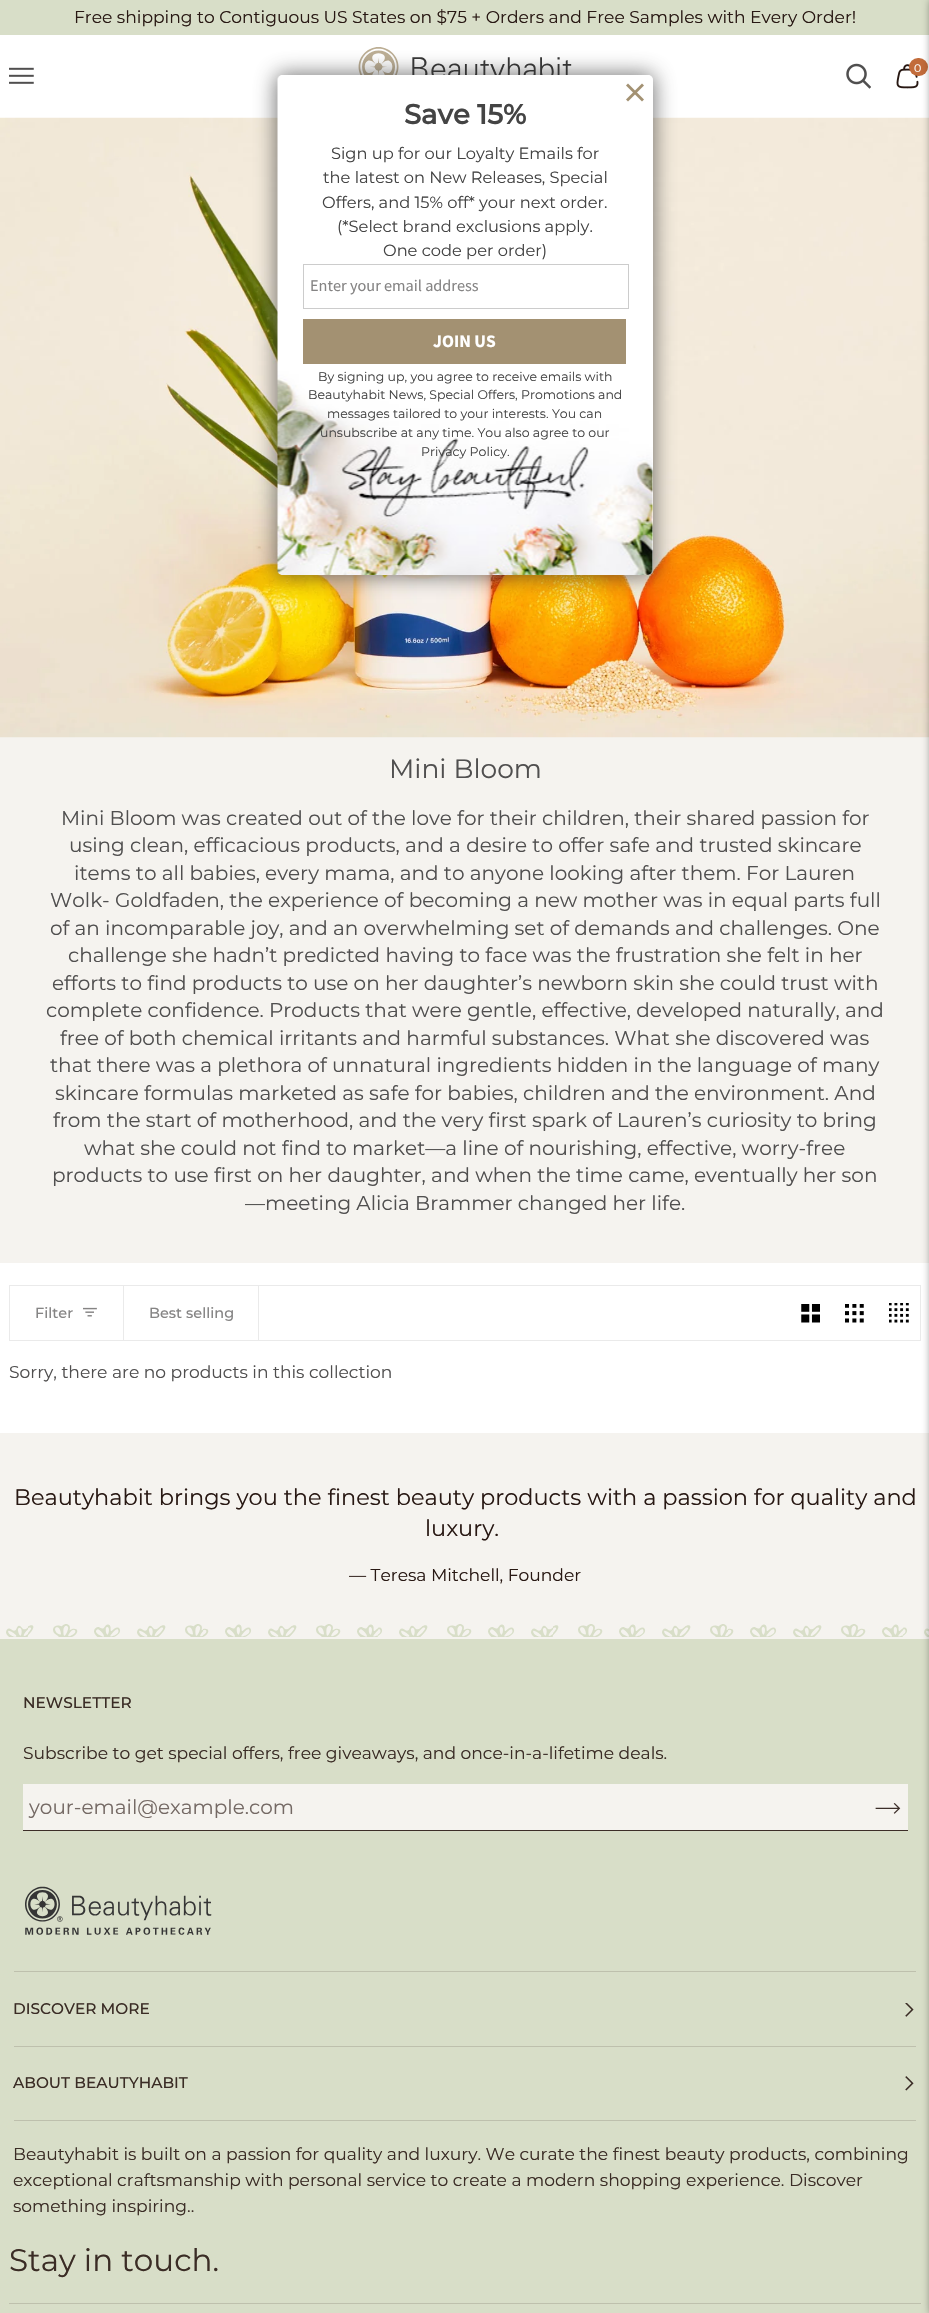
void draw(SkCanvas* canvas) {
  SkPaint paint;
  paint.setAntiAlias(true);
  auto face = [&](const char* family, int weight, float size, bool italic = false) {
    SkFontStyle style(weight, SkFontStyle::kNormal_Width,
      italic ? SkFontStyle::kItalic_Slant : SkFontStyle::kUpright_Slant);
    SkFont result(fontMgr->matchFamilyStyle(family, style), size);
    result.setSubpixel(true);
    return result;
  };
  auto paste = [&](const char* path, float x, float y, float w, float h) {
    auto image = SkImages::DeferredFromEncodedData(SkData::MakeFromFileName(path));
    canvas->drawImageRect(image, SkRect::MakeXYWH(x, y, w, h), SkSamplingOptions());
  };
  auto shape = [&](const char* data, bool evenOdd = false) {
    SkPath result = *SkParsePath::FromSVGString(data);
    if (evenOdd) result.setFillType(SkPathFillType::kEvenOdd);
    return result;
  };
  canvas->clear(0xffffffff);
  paint.setColor(0xffd8dec8);
  canvas->drawRect(SkRect::MakeXYWH(0, 0, 929, 35), paint);
  paste("img/4.png", 896, 64, 23, 25);
  paint.setColor(0xffc26b3a);
  canvas->drawRoundRect(SkRect::MakeXYWH(909, 58, 19, 18), 9, 9, paint);
  paint.setColor(0xfff5f3ef);
  canvas->drawRect(SkRect::MakeXYWH(0, 737, 929, 526), paint);
  paste("img/6.png", 0, 117, 929, 621);
  paint.setStroke(true);
  paint.setStrokeWidth(1);
  paint.setColor(0xffeaeaea);
  canvas->drawRect(SkRect::MakeXYWH(9.5f, 1285.5f, 911, 55), paint);
  paint.setStroke(false);
  paint.setColor(0xfff5f3ef);
  canvas->drawRect(SkRect::MakeXYWH(0, 1433, 929, 206), paint);
  paint.setColor(0xffd8dec8);
  canvas->drawRect(SkRect::MakeXYWH(0, 1639, 929, 674), paint);
  paste("img/11.png", 6, 1624, 923, 13);
  paint.setColor(0xffbec0ad);
  canvas->drawRect(SkRect::MakeXYWH(9, 2303, 912, 1), paint);
  paint.setColor(0x80000000);
  paint.setMaskFilter(SkMaskFilter::MakeBlur(kNormal_SkBlurStyle, 4.5f));
  canvas->drawRect(SkRect::MakeXYWH(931, 0, 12, 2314), paint);
  paint.setMaskFilter(nullptr);
  paste("img/1.png", 9, 67, 25, 17);
  paste("img/2.png", 358, 47, 214, 28);
  paste("img/3.png", 846, 63, 25, 26);
  paint.setColor(0xb0323232);
  paint.setMaskFilter(SkMaskFilter::MakeBlur(kNormal_SkBlurStyle, 10.5f));
  canvas->drawRoundRect(SkRect::MakeXYWH(276, 74, 378, 502), 6, 6, paint);
  paint.setMaskFilter(nullptr);
  paint.setColor(0xffffffff);
  canvas->drawRoundRect(SkRect::MakeXYWH(278, 75, 375, 500), 5, 5, paint);
  paste("img/5.png", 277, 75, 376, 500);
  paint.setColor(0xffa39172);
  canvas->drawPath(shape("M628 83.5L644 99.5L642 101.5L626 85.5Z"), paint);
  canvas->drawPath(shape("M626 99.5L642 83.5L644 85.5L628 101.5Z"), paint);
  paint.setStroke(true);
  paint.setColor(0xffcccccc);
  canvas->drawRect(SkRect::MakeXYWH(303.5f, 264.5f, 325, 44), paint);
  paint.setStroke(false);
  paint.setColor(0xffa39172);
  canvas->drawRect(SkRect::MakeXYWH(303, 319, 323, 45), paint);
  paint.setColor(0xffeaeaea);
  canvas->drawRect(SkRect::MakeXYWH(123, 1286, 1, 54), paint);
  paste("img/7.png", 83, 1307, 14, 10);
  canvas->drawRect(SkRect::MakeXYWH(258, 1286, 1, 54), paint);
  paste("img/8.png", 801, 1304, 19, 19);
  paste("img/9.png", 845, 1304, 19, 19);
  paste("img/10.png", 889, 1303, 20, 20);
  paint.setColor(0xfff5f3ef);
  canvas->drawRect(SkRect::MakeXYWH(23, 1784, 885, 46), paint);
  paint.setColor(0xff3d2e29);
  canvas->drawRect(SkRect::MakeXYWH(23, 1830, 885, 1), paint);
  paste("img/12.png", 875, 1803, 26, 11);
  paste("img/13.png", 25, 1886, 187, 49);
  paint.setColor(0xffbec0ad);
  canvas->drawRect(SkRect::MakeXYWH(14, 1971, 902, 1), paint);
  canvas->drawRect(SkRect::MakeXYWH(14, 2046, 902, 1), paint);
  paste("img/14.png", 905, 2003, 9, 14);
  canvas->drawRect(SkRect::MakeXYWH(14, 2120, 902, 1), paint);
  paste("img/15.png", 905, 2076, 9, 15);
  auto f0 = face("Montserrat", 400, 17.12f);
  paint.setColor(0xff281813);
  canvas->drawString("Free shipping to Contiguous US States on $75 + Orders and Free Samples with Every Order!", 74, 23, f0, paint);
  auto f1 = face("Montserrat", 400, 11);
  paint.setColor(0xffffffff);
  canvas->drawString("0", 914, 72, f1, paint);
  auto f2 = face("Montserrat", 700, 27.5f);
  paint.setColor(0xff444444);
  canvas->drawString("Save 15%", 404, 124, f2, paint);
  auto f3 = face("Montserrat", 400, 16.25f);
  {
    const struct { const char* s; float x, y; } items[] = {
      {"Sign up for our Loyalty Emails for", 331, 159},
      {"the latest on New Releases, Special", 323, 183},
      {"Offers, and 15% off* your next order.", 322, 208},
      {"(*Select brand exclusions apply.", 337, 232},
      {"One code per order)", 383, 256},
    };
    for (auto [s, x, y] : items) {
      canvas->drawString(s, x, y, f3, paint);
    }
  }
  auto f4 = face("Source Sans Pro", 400, 16.25f);
  paint.setColor(0xff858484);
  canvas->drawString("Enter your email address", 310, 291, f4, paint);
  auto f5 = face("Source Sans Pro", 700, 17.5f);
  paint.setColor(0xffffffff);
  canvas->drawString("JOIN US", 433, 347, f5, paint);
  auto f6 = face("Montserrat", 400, 12.5f);
  paint.setColor(0xff444444);
  {
    const struct { const char* s; float x, y; } items[] = {
      {"By signing up, you agree to receive emails with", 318, 381},
      {"Beautyhabit News, Special Offers, Promotions and", 308, 399},
      {"messages tailored to your interests. You can", 327, 418},
      {"unsubscribe at any time. You also agree to our", 320, 437},
      {"Privacy Policy.", 421, 456},
    };
    for (auto [s, x, y] : items) {
      canvas->drawString(s, x, y, f6, paint);
    }
  }
  auto f7 = face("Montserrat", 400, 26.5f);
  paint.setColor(0xff504f4f);
  canvas->drawString("Mini Bloom", 389, 778, f7, paint);
  auto f8 = face("Montserrat", 400, 20);
  {
    const struct { const char* s; float x, y; } items[] = {
      {"Mini Bloom was created out of the love for their children, their shared passion for", 61, 825},
      {"using clean, efficacious products, and a desire to offer safe and trusted skincare", 69, 852},
      {"items to all babies, every mama, and to anyone looking after them. For Lauren", 74, 880},
      {"Wolk- Goldfaden, the experience of becoming a new mother was in equal parts full", 50, 907},
      {"of an incomparable joy, and an overwhelming set of demands and challenges. One", 50, 935},
      {"challenge she hadn’t predicted having to face was the frustration she felt in her", 68, 962},
      {"efforts to find products to use on her daughter’s newborn skin she could trust with", 52, 990},
      {"complete confidence. Products that were gentle, effective, developed naturally, and", 46, 1017},
      {"free of both chemical irritants and harmful substances. What she discovered was", 60, 1045},
      {"that there was a plethora of unnatural ingredients hidden in the language of many", 50, 1072},
      {"skincare formulas marketed as safe for babies, children and the environment. And", 55, 1100},
      {"from the start of motherhood, and the very first spark of Lauren’s curiosity to bring", 53, 1127},
      {"what she could not find to market—a line of nourishing, effective, worry-free", 84, 1155},
      {"products to use first on her daughter, and when the time came, eventually her son", 52, 1182},
      {"—meeting Alicia Brammer changed her life.", 245, 1210},
    };
    for (auto [s, x, y] : items) {
      canvas->drawString(s, x, y, f8, paint);
    }
  }
  auto f9 = face("Montserrat", 500, 14.5f);
  paint.setColor(0xff858484);
  canvas->drawString("Filter", 35, 1318, f9, paint);
  canvas->drawString("Best selling", 149, 1318, f9, paint);
  paint.setColor(0xff504f4f);
  canvas->drawString("Sorry, there are no products in this collection", 9, 1378, f0, paint);
  auto f10 = face("Montserrat", 400, 22.45f);
  paint.setColor(0xff281813);
  canvas->drawString("Beautyhabit brings you the finest beauty products with a passion for quality and", 14, 1505, f10, paint);
  canvas->drawString("luxury.", 425, 1536, f10, paint);
  canvas->drawString("— Teresa Mitchell, Founder", 349, 1581, f0, paint);
  auto f11 = face("Montserrat", 500, 15.4f);
  paint.setColor(0xff3a2c25);
  canvas->drawString("NEWSLETTER", 23, 1708, f11, paint);
  canvas->drawString("Subscribe to get special offers, free giveaways, and once-in-a-lifetime deals.", 23, 1759, f0, paint);
  paint.setColor(0xff746964);
  canvas->drawString("your-email@example.com", 29, 1814, f8, paint);
  paint.setColor(0xff3a2c25);
  canvas->drawString("DISCOVER MORE", 13, 2014, f11, paint);
  canvas->drawString("ABOUT BEAUTYHABIT", 13, 2088, f11, paint);
  {
    const struct { const char* s; float x, y; } items[] = {
      {"Beautyhabit is built on a passion for quality and luxury. We curate the finest beauty products, combining", 13, 2160},
      {"exceptional craftsmanship with personal service to create a modern shopping experience. Discover", 13, 2186},
      {"something inspiring..", 13, 2212},
    };
    for (auto [s, x, y] : items) {
      canvas->drawString(s, x, y, f0, paint);
    }
  }
  auto f12 = face("Montserrat", 400, 31);
  canvas->drawString("Stay in touch.", 9, 2271, f12, paint);
}
